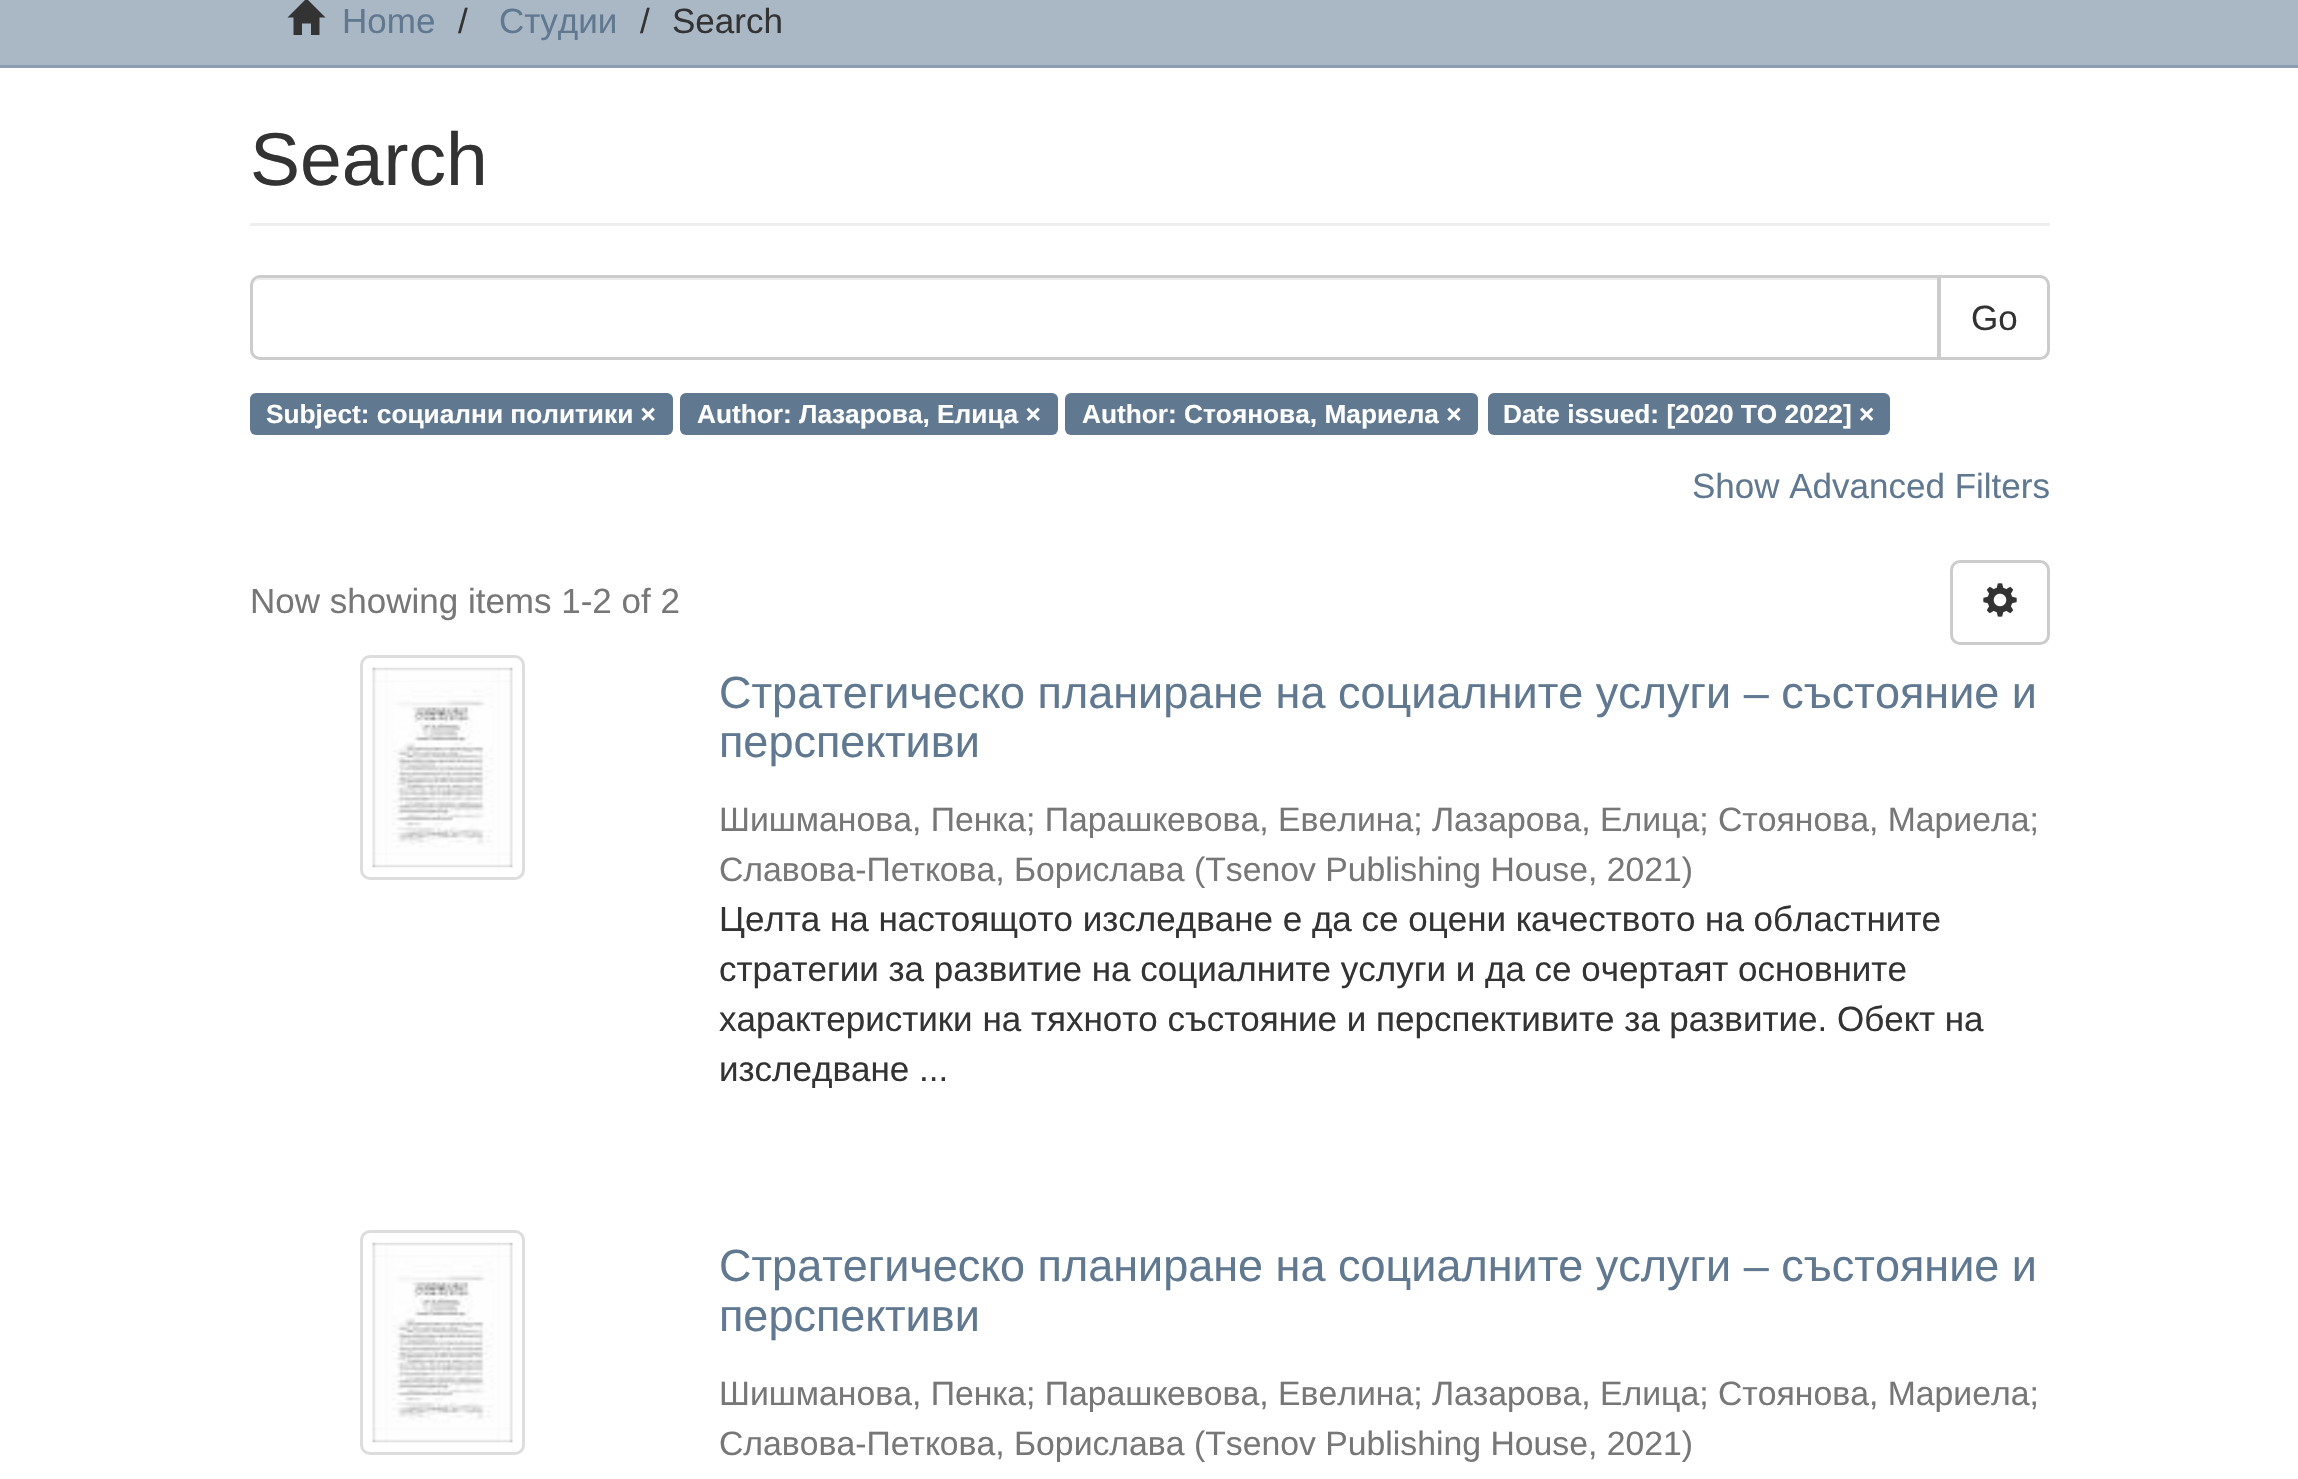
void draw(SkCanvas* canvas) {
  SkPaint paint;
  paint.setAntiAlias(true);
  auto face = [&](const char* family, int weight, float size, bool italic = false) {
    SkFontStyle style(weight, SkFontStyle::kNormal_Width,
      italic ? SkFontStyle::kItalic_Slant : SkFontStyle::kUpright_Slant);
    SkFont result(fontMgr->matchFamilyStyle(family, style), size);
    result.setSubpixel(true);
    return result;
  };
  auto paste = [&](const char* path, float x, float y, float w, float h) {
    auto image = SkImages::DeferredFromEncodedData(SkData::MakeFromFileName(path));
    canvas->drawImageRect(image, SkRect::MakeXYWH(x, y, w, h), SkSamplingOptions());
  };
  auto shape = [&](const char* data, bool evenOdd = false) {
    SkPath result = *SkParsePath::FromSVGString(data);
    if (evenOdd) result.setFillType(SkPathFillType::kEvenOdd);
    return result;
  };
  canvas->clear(0xffffffff);
  paint.setColor(0xffaab8c6);
  canvas->drawRect(SkRect::MakeXYWH(0, 0, 2298, 65), paint);
  paint.setColor(0xff8b9eb2);
  canvas->drawRect(SkRect::MakeXYWH(0, 65, 2298, 3), paint);
  paint.setColor(0xff333333);
  canvas->drawPath(shape("M287.5 17.5L306.5-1.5L325.5 17.5H319.5V35H311V23.5H302V35H293.5V17.5Z"), paint);
  paint.setColor(0xffeeeeee);
  canvas->drawRect(SkRect::MakeXYWH(250, 223, 1800, 3), paint);
  paint.setStroke(true);
  paint.setStrokeWidth(3);
  paint.setColor(0xffcccccc);
  canvas->drawPath(shape("M1939.5 276.5H2040C2044.5 276.5 2048.5 280.5 2048.5 285V350C2048.5 354.5 2044.5 358.5 2040 358.5H1939.5Z"), paint);
  paint.setStroke(false);
  paint.setColor(0xffffffff);
  canvas->drawPath(shape("M260 275H1940V360H260C254.5 360 250 355.5 250 350V285C250 279.5 254.5 275 260 275Z"), paint);
  paint.setColor(0xffececec);
  canvas->drawPath(shape("M260 280H1938V278H261C258 278 255 280 253 283C255 281 258 280 260 280Z"), paint);
  paint.setStroke(true);
  paint.setColor(0xffcccccc);
  canvas->drawPath(shape("M260 276.5H1938.5V358.5H260C255.5 358.5 251.5 354.5 251.5 350V285C251.5 280.5 255.5 276.5 260 276.5Z"), paint);
  paint.setStroke(false);
  paint.setColor(0xff607890);
  canvas->drawRoundRect(SkRect::MakeXYWH(250, 393, 423, 42), 6, 6, paint);
  canvas->drawRoundRect(SkRect::MakeXYWH(680, 393, 378, 42), 6, 6, paint);
  canvas->drawRoundRect(SkRect::MakeXYWH(1065, 393, 413, 42), 6, 6, paint);
  canvas->drawRoundRect(SkRect::MakeXYWH(1488, 393, 402, 42), 6, 6, paint);
  paint.setStroke(true);
  paint.setColor(0xffcccccc);
  canvas->drawRoundRect(SkRect::MakeXYWH(1951.5f, 561.5f, 97, 82), 8.5f, 8.5f, paint);
  paste("img/1.png", 1983, 583, 34, 34);
  paint.setColor(0xffdddddd);
  canvas->drawRoundRect(SkRect::MakeXYWH(361.5f, 656.5f, 162, 222), 8.5f, 8.5f, paint);
  paste("img/2.png", 372, 667, 141, 201);
  canvas->drawRoundRect(SkRect::MakeXYWH(361.5f, 1231.5f, 162, 222), 8.5f, 8.5f, paint);
  paste("img/2.png", 372, 1242, 141, 201);
  auto f0 = face("Liberation Sans", 400, 35);
  paint.setStroke(false);
  paint.setColor(0xff607890);
  canvas->drawString("Home", 342, 33, f0, paint);
  paint.setColor(0xff333333);
  canvas->drawString("/", 458, 33, f0, paint);
  paint.setColor(0xff607890);
  canvas->drawString("Студии", 499, 33, f0, paint);
  paint.setColor(0xff333333);
  canvas->drawString("/", 640, 33, f0, paint);
  canvas->drawString("Search", 672, 33, f0, paint);
  auto f1 = face("Liberation Sans", 400, 75);
  canvas->drawString("Search", 250, 185, f1, paint);
  canvas->drawString("Go", 1971, 330, f0, paint);
  auto f2 = face("Liberation Sans", 700, 26.25f);
  paint.setColor(0xffffffff);
  {
    const struct { const char* s; float x, y; } items[] = {
      {"Subject: социални политики ×", 266, 423},
      {"Author: Лазарова, Елица ×", 697, 423},
      {"Author: Стоянова, Мариела ×", 1082, 423},
      {"Date issued: [2020 TO 2022] ×", 1503, 423},
    };
    for (auto [s, x, y] : items) {
      canvas->drawString(s, x, y, f2, paint);
    }
  }
  paint.setColor(0xff607890);
  canvas->drawString("Show Advanced Filters", 1692, 498, f0, paint);
  paint.setColor(0xff777777);
  canvas->drawString("Now showing items 1-2 of 2", 250, 613, f0, paint);
  auto f3 = face("Liberation Sans", 400, 45);
  paint.setColor(0xff607890);
  canvas->drawString("Стратегическо планиране на социалните услуги – състояние и", 719, 708, f3, paint);
  canvas->drawString("перспективи", 719, 757, f3, paint);
  auto f4 = face("Liberation Sans", 400, 33.75f);
  paint.setColor(0xff777777);
  {
    const struct { const char* s; float x, y; } items[] = {
      {"Шишманова, Пенка; Парашкевова, Евелина; Лазарова, Елица; Стоянова, Мариела;", 719, 831},
      {"Славова-Петкова, Борислава", 719, 881},
      {"(Tsenov Publishing House, 2021)", 1194, 881},
    };
    for (auto [s, x, y] : items) {
      canvas->drawString(s, x, y, f4, paint);
    }
  }
  paint.setColor(0xff333333);
  {
    const struct { const char* s; float x, y; } items[] = {
      {"Целта на настоящото изследване е да се оцени качеството на областните", 719, 931},
      {"стратегии за развитие на социалните услуги и да се очертаят основните", 719, 981},
      {"характеристики на тяхното състояние и перспективите за развитие. Обект на", 719, 1031},
      {"изследване ...", 719, 1081},
    };
    for (auto [s, x, y] : items) {
      canvas->drawString(s, x, y, f0, paint);
    }
  }
  paint.setColor(0xff607890);
  canvas->drawString("Стратегическо планиране на социалните услуги – състояние и", 719, 1281, f3, paint);
  canvas->drawString("перспективи", 719, 1331, f3, paint);
  paint.setColor(0xff777777);
  {
    const struct { const char* s; float x, y; } items[] = {
      {"Шишманова, Пенка; Парашкевова, Евелина; Лазарова, Елица; Стоянова, Мариела;", 719, 1405},
      {"Славова-Петкова, Борислава", 719, 1455},
      {"(Tsenov Publishing House, 2021)", 1194, 1455},
    };
    for (auto [s, x, y] : items) {
      canvas->drawString(s, x, y, f4, paint);
    }
  }
}
